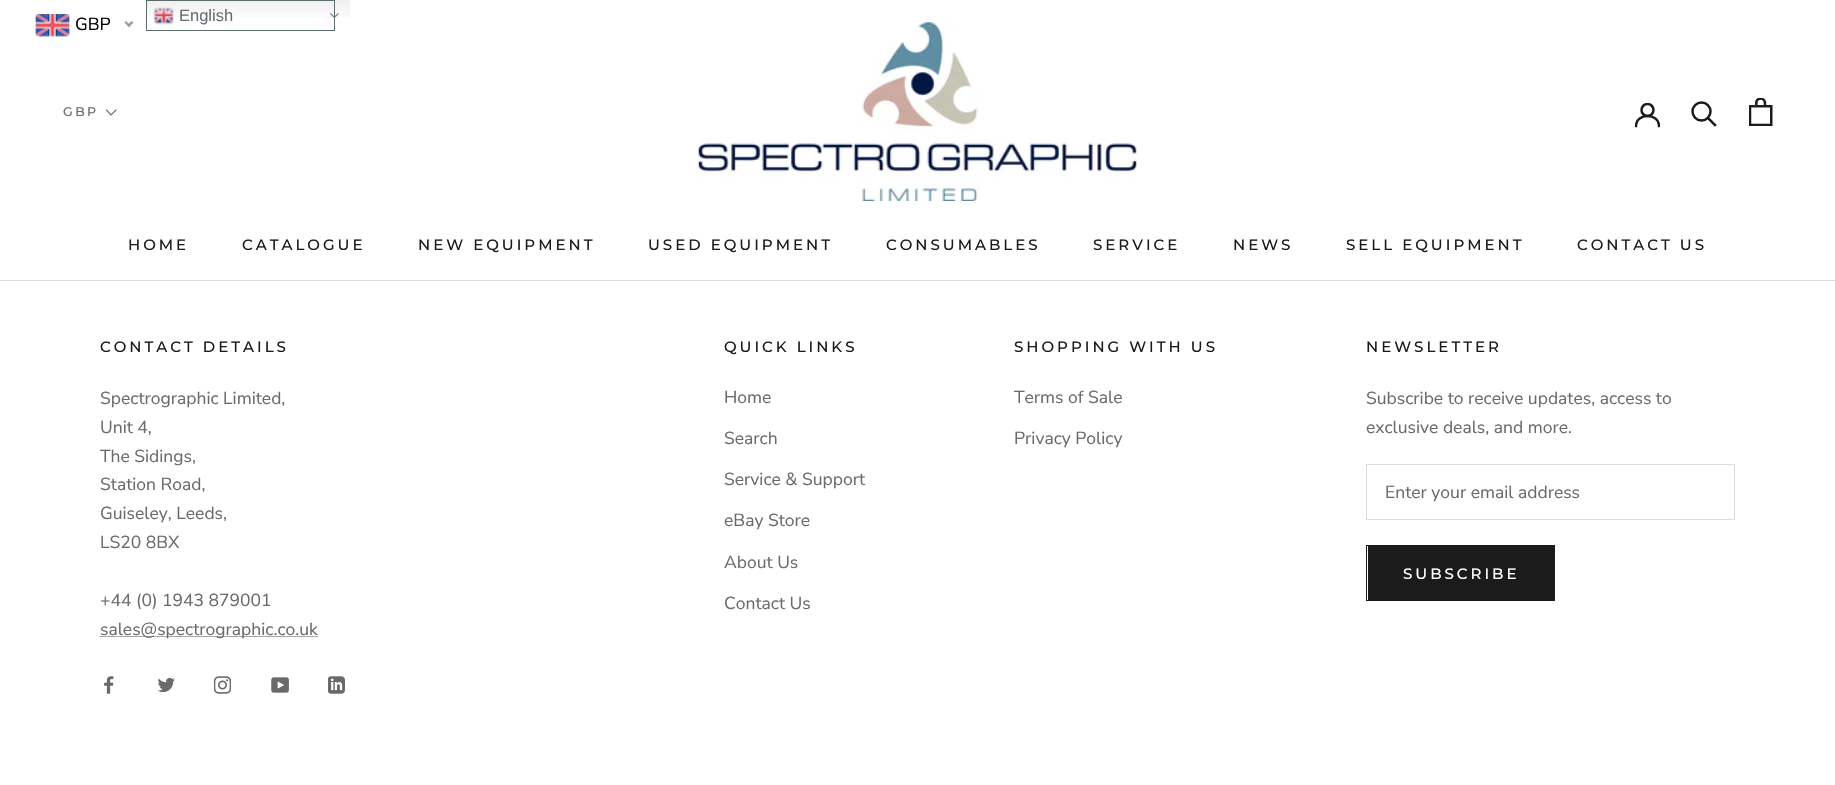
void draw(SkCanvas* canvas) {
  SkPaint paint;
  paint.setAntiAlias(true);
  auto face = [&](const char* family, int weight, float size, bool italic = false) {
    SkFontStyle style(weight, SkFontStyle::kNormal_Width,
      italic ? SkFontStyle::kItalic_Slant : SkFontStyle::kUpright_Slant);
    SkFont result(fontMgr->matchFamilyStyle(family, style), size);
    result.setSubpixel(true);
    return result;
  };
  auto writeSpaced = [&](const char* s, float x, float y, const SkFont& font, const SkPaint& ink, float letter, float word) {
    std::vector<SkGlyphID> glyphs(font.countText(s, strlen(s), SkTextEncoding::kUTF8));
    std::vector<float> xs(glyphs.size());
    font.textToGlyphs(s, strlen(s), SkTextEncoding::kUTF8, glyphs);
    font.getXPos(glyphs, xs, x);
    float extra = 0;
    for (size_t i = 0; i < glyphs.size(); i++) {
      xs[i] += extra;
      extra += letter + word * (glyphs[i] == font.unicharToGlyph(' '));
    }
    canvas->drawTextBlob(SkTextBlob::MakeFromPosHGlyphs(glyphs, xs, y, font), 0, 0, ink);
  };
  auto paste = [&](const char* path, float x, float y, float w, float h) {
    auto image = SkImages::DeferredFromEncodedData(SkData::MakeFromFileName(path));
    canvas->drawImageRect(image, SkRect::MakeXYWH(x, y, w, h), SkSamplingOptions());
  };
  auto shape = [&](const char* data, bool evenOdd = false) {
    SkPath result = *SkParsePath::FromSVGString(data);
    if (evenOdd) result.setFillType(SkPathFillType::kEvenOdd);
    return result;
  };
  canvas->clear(0xffffffff);
  paste("img/1.png", 35, 14, 35, 23);
  paint.setColor(0xff999999);
  canvas->drawPath(shape("M131.5 21L133.5 22.5L129 27L127 25.5Z"), paint);
  canvas->drawPath(shape("M126 21L130.5 25.5L129 27L124.5 22.5Z"), paint);
  {
    const SkColor colors[] = {0xffefefef, 0xffffffff};
    const float stops[] = {0, 0.7f};
    const SkPoint ends[] = {{248, 0}, {248, 31}};
    paint.setShader(SkGradientShader::MakeLinear(ends, colors, stops, 2, SkTileMode::kClamp));
    paint.setAlpha(255);
  }
  canvas->drawRect(SkRect::MakeXYWH(147, 0, 203, 18), paint);
  paint.setStroke(true);
  paint.setStrokeWidth(1);
  paint.setShader(nullptr);
  paint.setColor(0xff5c6b6b);
  canvas->drawRect(SkRect::MakeXYWH(146.5f, 0.5f, 188, 30), paint);
  paste("img/2.png", 153, 7, 21, 18);
  paste("img/3.png", 330, 13, 9, 5);
  paint.setStroke(false);
  paint.setColor(0xffdddddd);
  canvas->drawRect(SkRect::MakeXYWH(0, 280, 1835, 1), paint);
  paste("img/4.png", 698, 22, 439, 179);
  canvas->save();
  canvas->clipRect(SkRect::MakeXYWH(1635, 103, 25, 25));
  paint.setStroke(true);
  paint.setStrokeWidth(2.5f);
  paint.setStrokeCap(SkPaint::kSquare_Cap);
  paint.setColor(0xff1c1b1b);
  canvas->drawPath(shape("M1636 126C1636 112.5 1659 112.5 1659 126"), paint);
  paint.setStrokeCap(SkPaint::kButt_Cap);
  canvas->drawCircle(1647.5f, 110, 6, paint);
  canvas->restore();
  paint.setStrokeCap(SkPaint::kSquare_Cap);
  canvas->drawPath(shape("M1715 125L1708 118"), paint);
  paint.setStrokeCap(SkPaint::kButt_Cap);
  canvas->drawCircle(1701.5f, 111.5f, 9, paint);
  paste("img/5.png", 1749, 98, 24, 28);
  paint.setStrokeWidth(1.2f);
  paint.setStrokeCap(SkPaint::kSquare_Cap);
  paint.setColor(0xff6a6a6a);
  canvas->drawPath(shape("M116 110L111 115L106.5 110"), paint);
  paint.setStroke(false);
  paint.setColor(0xffa6a6a6);
  canvas->drawRect(SkRect::MakeXYWH(100, 636, 218, 1), paint);
  paste("img/6.png", 104, 676, 10, 18);
  paste("img/7.png", 158, 677, 17, 16);
  paste("img/8.png", 214, 676, 17, 18);
  paste("img/9.png", 271, 677, 18, 16);
  paste("img/10.png", 328, 676, 17, 18);
  paint.setStroke(true);
  paint.setStrokeWidth(1);
  paint.setStrokeCap(SkPaint::kButt_Cap);
  paint.setColor(0xffdddddd);
  canvas->drawRect(SkRect::MakeXYWH(1366.5f, 464.5f, 368, 55), paint);
  paint.setColor(0xff1c1b1b);
  canvas->drawRect(SkRect::MakeXYWH(1366.5f, 545.5f, 188, 55), paint);
  paint.setStroke(false);
  canvas->drawRect(SkRect::MakeXYWH(1368, 546, 186, 54), paint);
  auto f0 = face("Nunito Sans", 400, 17.5f);
  paint.setColor(0xff000000);
  canvas->drawString("GBP", 75, 30, f0, paint);
  auto f1 = face("Liberation Sans", 400, 16.5f);
  paint.setColor(0xff686f70);
  canvas->drawString("English", 179, 21, f1, paint);
  auto f2 = face("Montserrat", 500, 12.5f);
  paint.setColor(0xff6a6a6a);
  writeSpaced("GBP", 63, 116, f2, paint, 2.5f, 0);
  auto f3 = face("Montserrat", 500, 15);
  paint.setColor(0xff1c1b1b);
  {
    const struct { const char* s; float x, y; } items[] = {
      {"HOME", 128, 250},
      {"CATALOGUE", 242, 250},
      {"NEW EQUIPMENT", 418, 250},
      {"USED EQUIPMENT", 648, 250},
      {"CONSUMABLES", 886, 250},
      {"SERVICE", 1093, 250},
      {"NEWS", 1233, 250},
      {"SELL EQUIPMENT", 1346, 250},
      {"CONTACT US", 1577, 250},
      {"CONTACT DETAILS", 100, 352},
    };
    for (auto [s, x, y] : items) {
      writeSpaced(s, x, y, f3, paint, 3, 0);
    }
  }
  paint.setColor(0xff6a6a6a);
  {
    const struct { const char* s; float x, y; } items[] = {
      {"Spectrographic Limited,", 100, 404},
      {"Unit 4,", 100, 433},
      {"The Sidings,", 100, 462},
      {"Station Road,", 100, 490},
      {"Guiseley, Leeds,", 100, 519},
      {"LS20 8BX", 100, 548},
      {"+44 (0) 1943 879001", 100, 606},
      {"sales@spectrographic.co.uk", 100, 635},
    };
    for (auto [s, x, y] : items) {
      canvas->drawString(s, x, y, f0, paint);
    }
  }
  paint.setColor(0xff1c1b1b);
  writeSpaced("QUICK LINKS", 724, 352, f3, paint, 3, 0);
  paint.setColor(0xff6a6a6a);
  {
    const struct { const char* s; float x, y; } items[] = {
      {"Home", 724, 403},
      {"Search", 724, 444},
      {"Service & Support", 724, 485},
      {"eBay Store", 724, 526},
      {"About Us", 724, 568},
      {"Contact Us", 724, 609},
    };
    for (auto [s, x, y] : items) {
      canvas->drawString(s, x, y, f0, paint);
    }
  }
  paint.setColor(0xff1c1b1b);
  writeSpaced("SHOPPING WITH US", 1014, 352, f3, paint, 3, 0);
  paint.setColor(0xff6a6a6a);
  canvas->drawString("Terms of Sale", 1014, 403, f0, paint);
  canvas->drawString("Privacy Policy", 1014, 444, f0, paint);
  paint.setColor(0xff1c1b1b);
  writeSpaced("NEWSLETTER", 1366, 352, f3, paint, 3, 0);
  paint.setColor(0xff6a6a6a);
  {
    const struct { const char* s; float x, y; } items[] = {
      {"Subscribe to receive updates, access to", 1366, 404},
      {"exclusive deals, and more.", 1366, 433},
      {"Enter your email address", 1385, 498},
    };
    for (auto [s, x, y] : items) {
      canvas->drawString(s, x, y, f0, paint);
    }
  }
  paint.setColor(0xffffffff);
  writeSpaced("SUBSCRIBE", 1403, 579, f3, paint, 3, 0);
}
